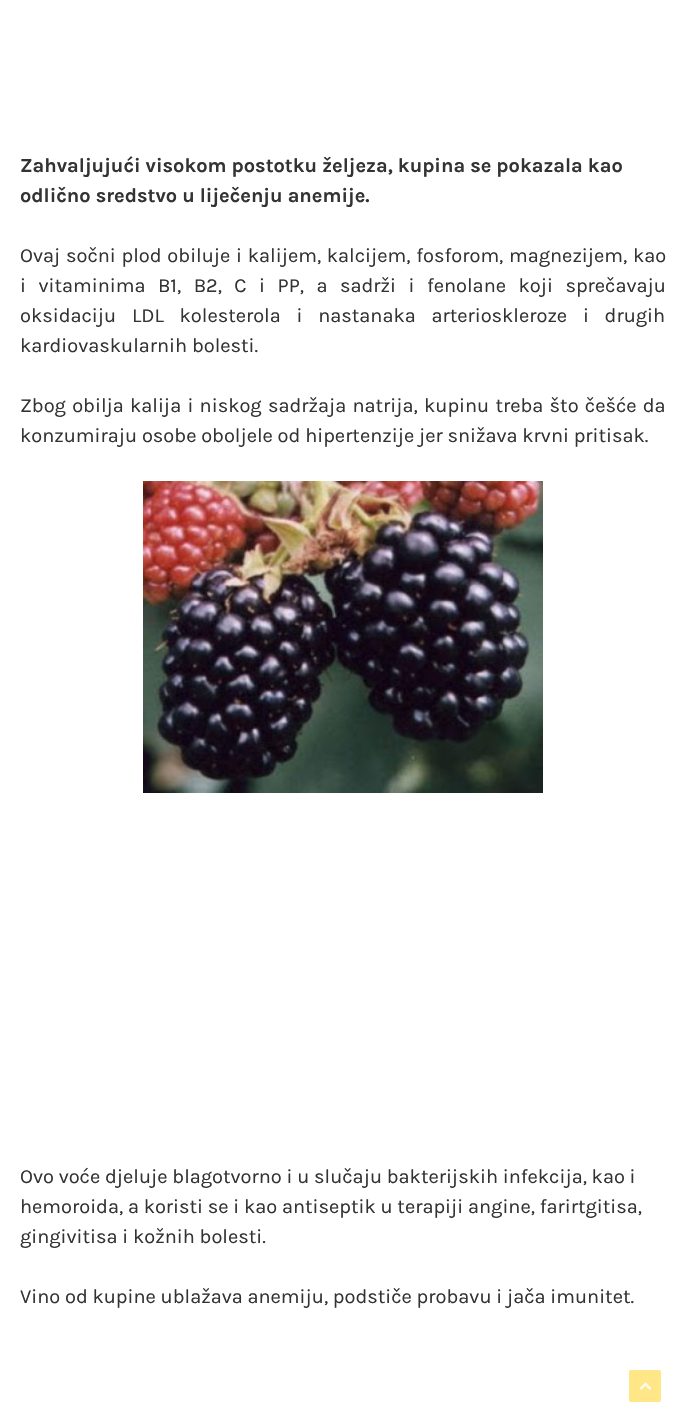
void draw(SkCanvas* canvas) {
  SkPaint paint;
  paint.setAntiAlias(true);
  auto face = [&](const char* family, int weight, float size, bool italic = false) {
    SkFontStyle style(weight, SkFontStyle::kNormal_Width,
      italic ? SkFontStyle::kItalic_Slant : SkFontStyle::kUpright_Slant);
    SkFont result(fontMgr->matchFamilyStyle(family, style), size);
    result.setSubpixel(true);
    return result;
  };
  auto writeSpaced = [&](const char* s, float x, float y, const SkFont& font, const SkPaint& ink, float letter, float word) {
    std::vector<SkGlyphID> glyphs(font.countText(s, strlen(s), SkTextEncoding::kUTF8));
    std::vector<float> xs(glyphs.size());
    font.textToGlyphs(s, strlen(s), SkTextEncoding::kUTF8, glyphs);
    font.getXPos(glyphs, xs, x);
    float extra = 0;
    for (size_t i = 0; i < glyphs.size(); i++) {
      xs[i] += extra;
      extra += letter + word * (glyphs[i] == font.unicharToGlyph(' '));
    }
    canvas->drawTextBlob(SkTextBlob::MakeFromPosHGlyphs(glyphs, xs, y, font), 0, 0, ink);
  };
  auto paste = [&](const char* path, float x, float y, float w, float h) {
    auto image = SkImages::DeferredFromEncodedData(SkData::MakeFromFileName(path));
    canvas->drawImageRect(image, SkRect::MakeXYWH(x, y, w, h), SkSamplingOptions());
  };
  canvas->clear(0xffffffff);
  paste("img/1.png", 143, 481, 400, 312);
  paint.setColor(0xffffe686);
  canvas->drawRoundRect(SkRect::MakeXYWH(629, 1370, 32, 32), 2, 2, paint);
  paste("img/2.png", 639, 1382, 13, 8);
  auto f0 = face("Karla", 700, 20);
  paint.setColor(0xff333333);
  canvas->drawString("Zahvaljujući visokom postotku željeza, kupina se pokazala kao", 20, 172, f0, paint);
  canvas->drawString("odlično sredstvo u liječenju anemije.", 20, 202, f0, paint);
  auto f1 = face("Karla", 400, 20);
  writeSpaced("Ovaj sočni plod obiluje i kalijem, kalcijem, fosforom, magnezijem, kao", 20, 262, f1, paint, 0, 1);
  writeSpaced("i vitaminima B1, B2, C i PP, a sadrži i fenolane koji sprečavaju", 20, 292, f1, paint, 0, 7.75f);
  writeSpaced("oksidaciju LDL kolesterola i nastanaka arterioskleroze i drugih", 20, 322, f1, paint, 0, 11);
  canvas->drawString("kardiovaskularnih bolesti.", 20, 352, f1, paint);
  writeSpaced("Zbog obilja kalija i niskog sadržaja natrija, kupinu treba što češće da", 20, 412, f1, paint, 0, 1.5f);
  {
    const struct { const char* s; float x, y; } items[] = {
      {"konzumiraju osobe oboljele od hipertenzije jer snižava krvni pritisak.", 20, 442},
      {"Ovo voće djeluje blagotvorno i u slučaju bakterijskih infekcija, kao i", 20, 1183},
      {"hemoroida, a koristi se i kao antiseptik u terapiji angine, farirtgitisa,", 20, 1213},
      {"gingivitisa i kožnih bolesti.", 20, 1243},
      {"Vino od kupine ublažava anemiju, podstiče probavu i jača imunitet.", 20, 1303},
    };
    for (auto [s, x, y] : items) {
      canvas->drawString(s, x, y, f1, paint);
    }
  }
}
